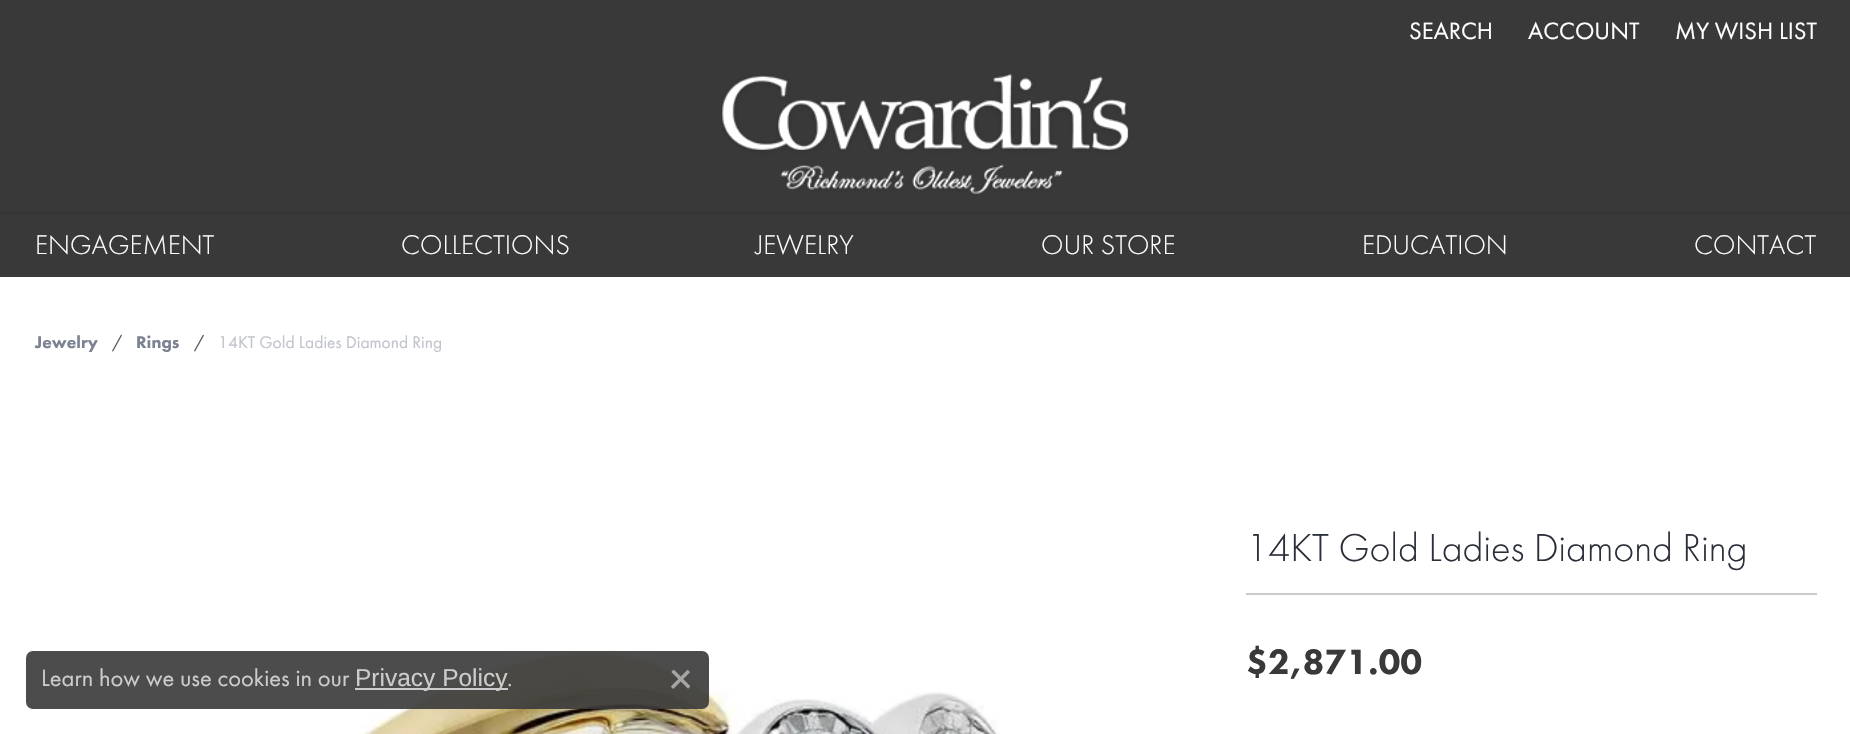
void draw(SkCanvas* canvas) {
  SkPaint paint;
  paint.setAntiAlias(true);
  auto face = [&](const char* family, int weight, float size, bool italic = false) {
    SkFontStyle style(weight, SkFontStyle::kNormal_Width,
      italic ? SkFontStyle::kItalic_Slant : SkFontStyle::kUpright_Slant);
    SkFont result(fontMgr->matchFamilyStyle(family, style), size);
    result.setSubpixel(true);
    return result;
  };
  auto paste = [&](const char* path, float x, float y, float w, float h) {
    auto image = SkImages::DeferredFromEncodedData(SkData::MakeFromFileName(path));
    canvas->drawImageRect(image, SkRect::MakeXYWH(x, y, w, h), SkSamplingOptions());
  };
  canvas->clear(0xff393939);
  paste("img/1.png", 721, 73, 408, 121);
  {
    const struct { float x, y, w, h; SkColor color; } items[] = {
      {0, 212, 1850, 2, 0xff353535},
      {0, 277, 1850, 457, 0xffffffff},
      {1246, 593, 571, 2, 0xffcbcbcb},
    };
    for (auto [x, y, w, h, color] : items) {
      paint.setColor(color);
      canvas->drawRect(SkRect::MakeXYWH(x, y, w, h), paint);
    }
  }
  paste("img/2.png", 360, 649, 640, 85);
  paint.setColor(0xe6393939);
  canvas->drawRoundRect(SkRect::MakeXYWH(26, 651, 683, 58), 7, 7, paint);
  paint.setColor(0xffcccccc);
  canvas->drawRect(SkRect::MakeXYWH(355, 688, 153, 2), paint);
  paste("img/3.png", 671, 669, 20, 20);
  auto f0 = face("Futura PT", 400, 24.5f);
  paint.setColor(0xffffffff);
  {
    const struct { const char* s; float x, y; } items[] = {
      {"SEARCH", 1409, 39},
      {"ACCOUNT", 1528, 39},
      {"MY WISH LIST", 1675, 39},
    };
    for (auto [s, x, y] : items) {
      canvas->drawString(s, x, y, f0, paint);
    }
  }
  auto f1 = face("Futura PT", 300, 28);
  {
    const struct { const char* s; float x, y; } items[] = {
      {"ENGAGEMENT", 35, 254},
      {"COLLECTIONS", 401, 254},
      {"JEWELRY", 756, 254},
      {"OUR STORE", 1041, 254},
      {"EDUCATION", 1362, 254},
      {"CONTACT", 1694, 254},
    };
    for (auto [s, x, y] : items) {
      canvas->drawString(s, x, y, f1, paint);
    }
  }
  auto f2 = face("Futura PT", 900, 17.5f);
  paint.setColor(0xff7b8292);
  canvas->drawString("Jewelry", 35, 348, f2, paint);
  auto f3 = face("Futura PT", 400, 17.5f);
  paint.setColor(0xff565656);
  canvas->drawString("/", 112, 348, f3, paint);
  paint.setColor(0xff7b8292);
  canvas->drawString("Rings", 136, 348, f2, paint);
  paint.setColor(0xff565656);
  canvas->drawString("/", 194, 348, f3, paint);
  paint.setColor(0xffc1c4cc);
  canvas->drawString("14KT Gold Ladies Diamond Ring", 218, 348, f3, paint);
  auto f4 = face("Futura PT", 300, 40.4f);
  paint.setColor(0xff2b2f3a);
  canvas->drawString("14KT Gold Ladies Diamond Ring", 1246, 561, f4, paint);
  auto f5 = face("Futura PT", 900, 36.5f);
  paint.setColor(0xff393939);
  canvas->drawString("$2,871.00", 1246, 674, f5, paint);
  paint.setColor(0xffcccccc);
  canvas->drawString("Learn how we use cookies in our", 41, 686, f0, paint);
  auto f6 = face("Liberation Sans", 400, 24.5f);
  canvas->drawString("Privacy Policy", 355, 686, f6, paint);
  canvas->drawString(".", 507, 686, f0, paint);
}
